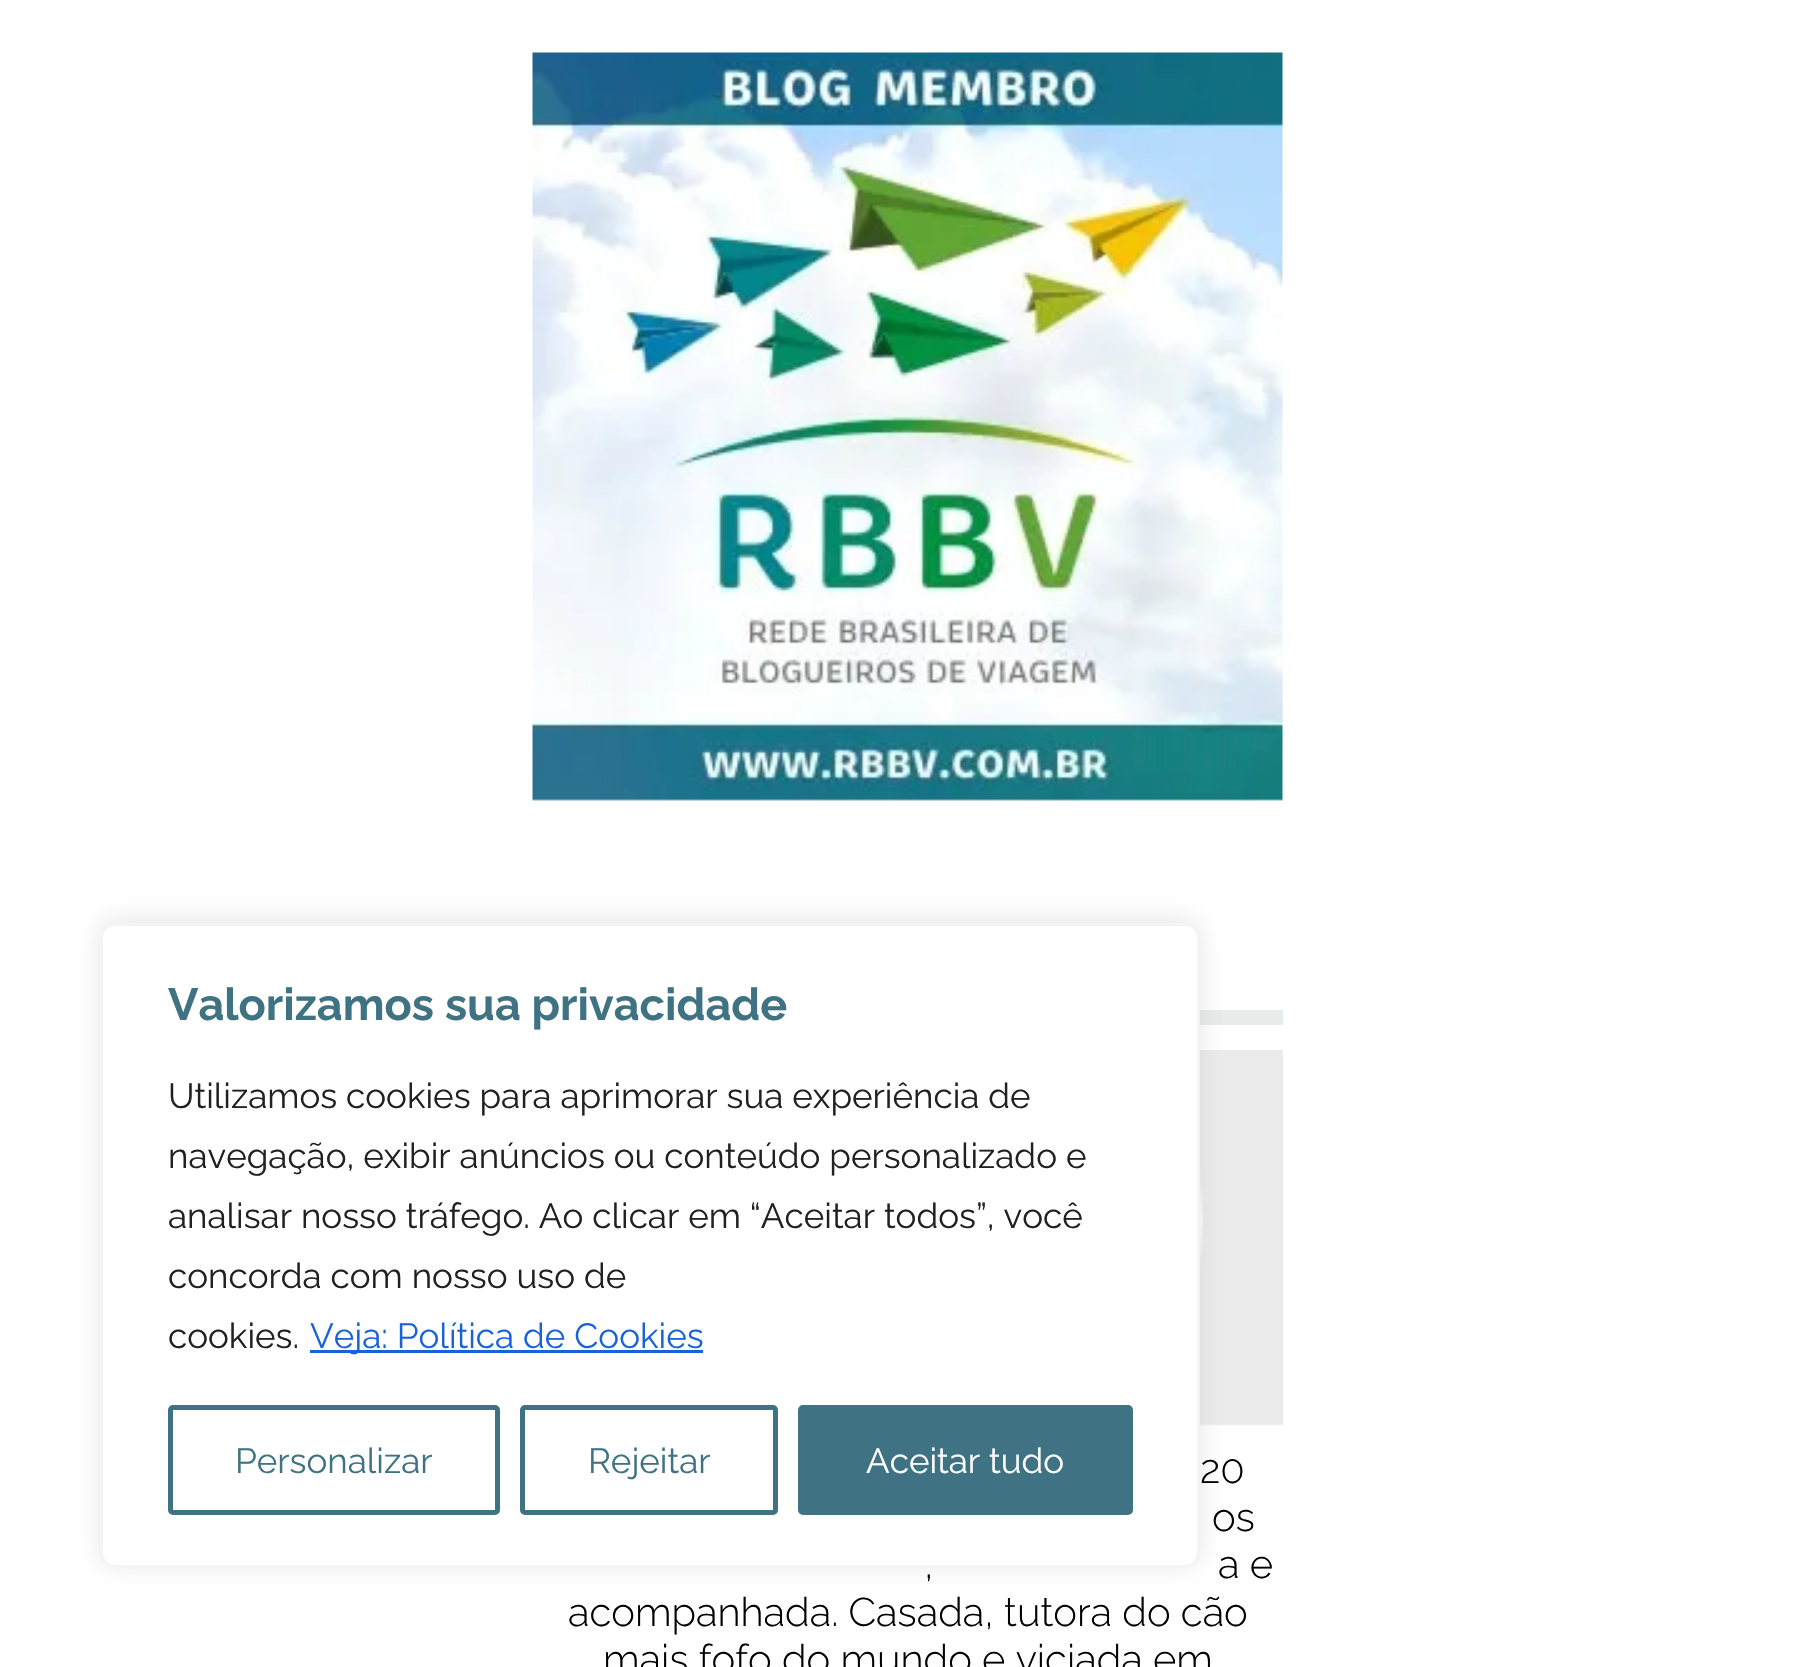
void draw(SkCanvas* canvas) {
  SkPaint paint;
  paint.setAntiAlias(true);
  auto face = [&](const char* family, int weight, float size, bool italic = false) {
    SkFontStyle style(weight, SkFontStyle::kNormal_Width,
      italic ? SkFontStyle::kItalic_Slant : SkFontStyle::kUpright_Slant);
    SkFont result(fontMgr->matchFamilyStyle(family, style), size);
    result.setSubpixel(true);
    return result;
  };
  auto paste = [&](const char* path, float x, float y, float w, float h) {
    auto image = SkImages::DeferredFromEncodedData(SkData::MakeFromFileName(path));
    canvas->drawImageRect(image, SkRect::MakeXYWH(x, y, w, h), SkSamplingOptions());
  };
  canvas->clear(0xffffffff);
  paint.setColor(0xffe7ebe9);
  canvas->drawRect(SkRect::MakeXYWH(1200, 1010, 83, 15), paint);
  paste("img/2.png", 1200, 1050, 83, 376);
  paint.setColor(0x4dacabab);
  paint.setMaskFilter(SkMaskFilter::MakeBlur(kNormal_SkBlurStyle, 12.5f));
  canvas->drawRoundRect(SkRect::MakeXYWH(100, 920, 1100, 645), 15, 15, paint);
  paint.setMaskFilter(nullptr);
  paint.setColor(0xffffffff);
  canvas->drawRoundRect(SkRect::MakeXYWH(101.5f, 924.5f, 1097, 642), 13.5f, 13.5f, paint);
  paint.setStroke(true);
  paint.setStrokeWidth(3);
  paint.setColor(0xfff4f4f4);
  canvas->drawRoundRect(SkRect::MakeXYWH(101.5f, 924.5f, 1097, 642), 13.5f, 13.5f, paint);
  paint.setStroke(false);
  paint.setColor(0xff1863dc);
  canvas->drawRect(SkRect::MakeXYWH(310, 1350, 393, 3), paint);
  paint.setStroke(true);
  paint.setStrokeWidth(5);
  paint.setColor(0xff3f7383);
  canvas->drawRoundRect(SkRect::MakeXYWH(170.5f, 1407.5f, 327, 105), 2.5f, 2.5f, paint);
  canvas->drawRoundRect(SkRect::MakeXYWH(522.5f, 1407.5f, 253, 105), 2.5f, 2.5f, paint);
  paint.setStroke(false);
  canvas->drawRoundRect(SkRect::MakeXYWH(800.5f, 1407.5f, 330, 105), 2.5f, 2.5f, paint);
  paint.setStroke(true);
  canvas->drawRoundRect(SkRect::MakeXYWH(800.5f, 1407.5f, 330, 105), 2.5f, 2.5f, paint);
  paste("img/1.png", 532, 52, 751, 749);
  auto f0 = face("Raleway", 700, 45);
  paint.setStroke(false);
  canvas->drawString("Valorizamos sua privacidade", 168, 1020, f0, paint);
  auto f1 = face("Raleway", 400, 35);
  paint.setColor(0xff212121);
  {
    const struct { const char* s; float x, y; } items[] = {
      {"Utilizamos cookies para aprimorar sua experiência de", 168, 1108},
      {"navegação, exibir anúncios ou conteúdo personalizado e", 168, 1168},
      {"analisar nosso tráfego. Ao clicar em “Aceitar todos”, você", 168, 1228},
      {"concorda com nosso uso de", 168, 1288},
      {"cookies.", 168, 1348},
    };
    for (auto [s, x, y] : items) {
      canvas->drawString(s, x, y, f1, paint);
    }
  }
  paint.setColor(0xff1863dc);
  canvas->drawString("Veja: Política de Cookies", 310, 1348, f1, paint);
  paint.setColor(0xff3f7383);
  canvas->drawString("Personalizar", 235, 1473, f1, paint);
  canvas->drawString("Rejeitar", 588, 1473, f1, paint);
  paint.setColor(0xffffffff);
  canvas->drawString("Aceitar tudo", 866, 1473, f1, paint);
  auto f2 = face("Raleway", 300, 40);
  paint.setColor(0xff000000);
  {
    const struct { const char* s; float x, y; } items[] = {
      {"20", 1200, 1483},
      {"os", 1212, 1531},
      {",", 924, 1578},
      {"a e", 1218, 1578},
      {"acompanhada. Casada, tutora do cão", 568, 1626},
      {"mais fofo do mundo e viciada em", 603, 1673},
    };
    for (auto [s, x, y] : items) {
      canvas->drawString(s, x, y, f2, paint);
    }
  }
}
